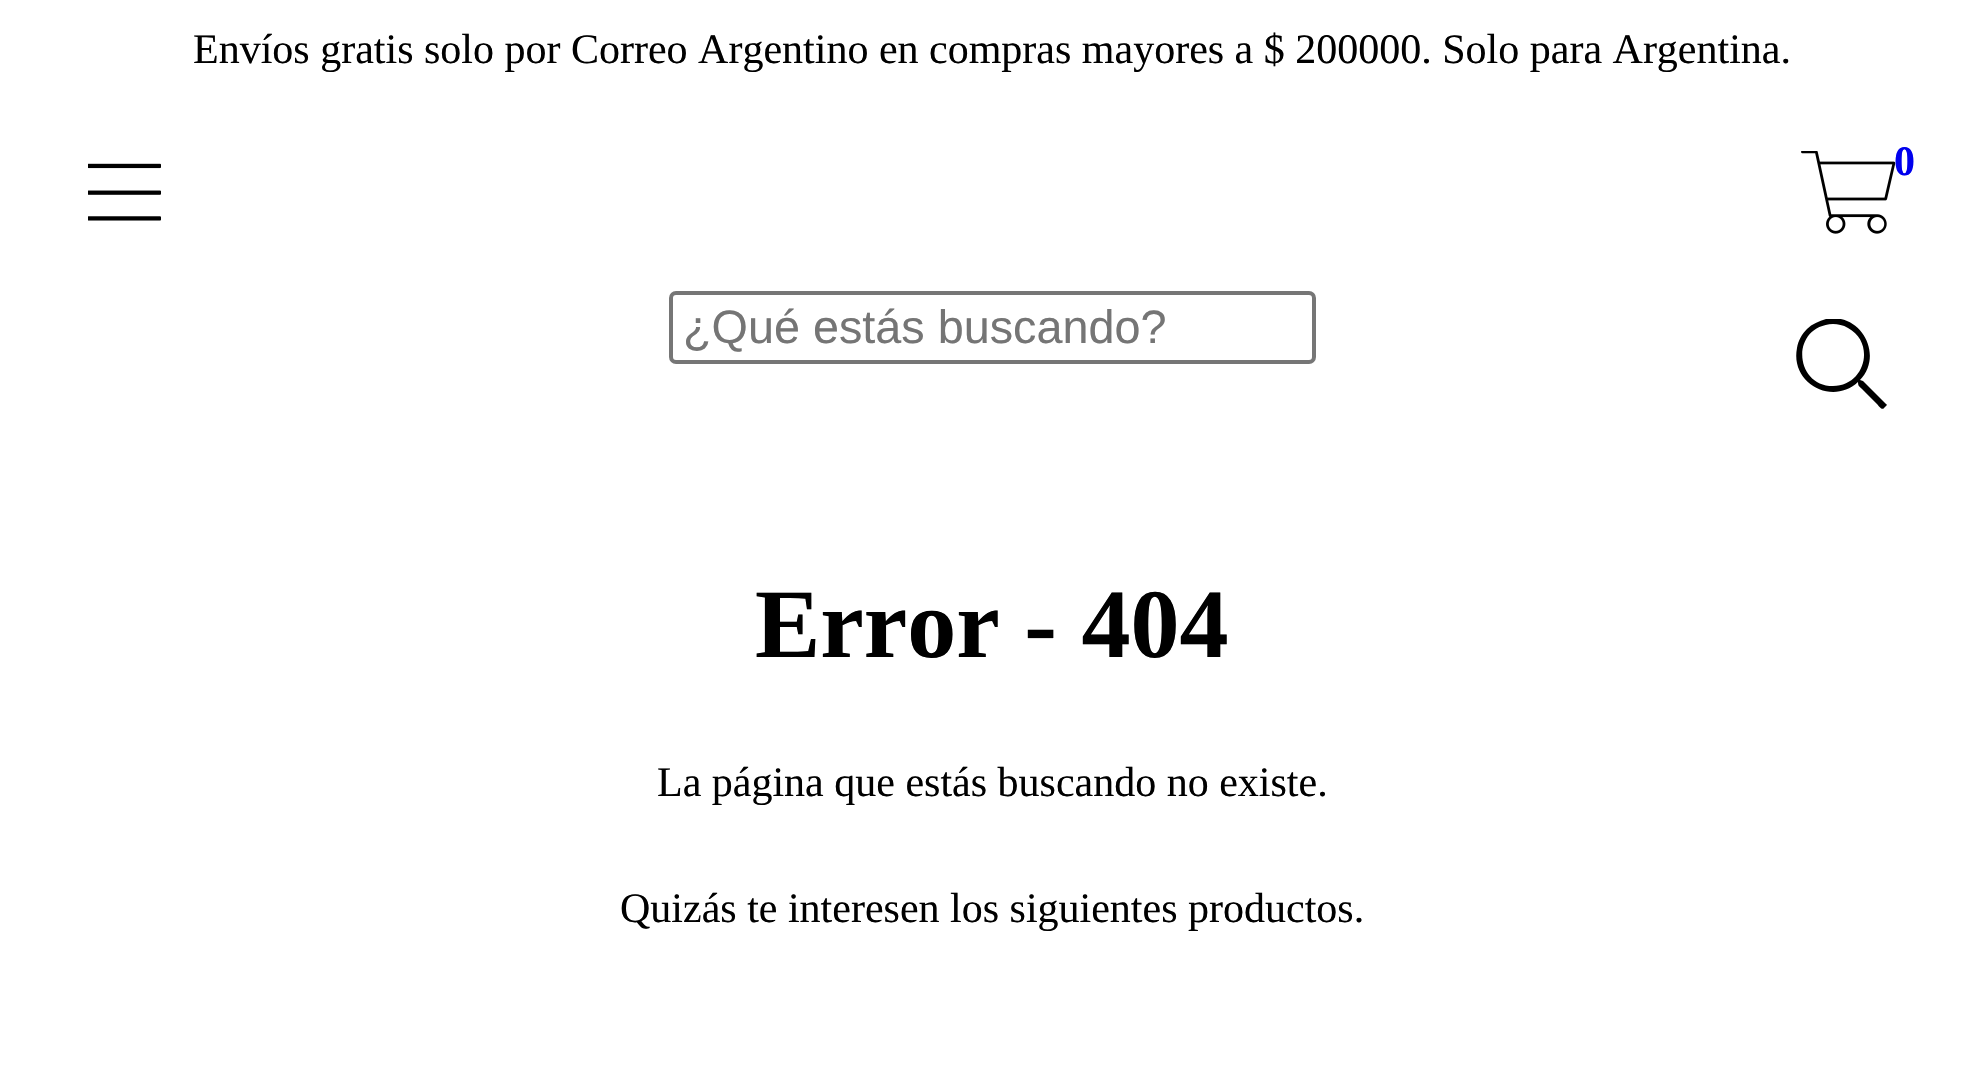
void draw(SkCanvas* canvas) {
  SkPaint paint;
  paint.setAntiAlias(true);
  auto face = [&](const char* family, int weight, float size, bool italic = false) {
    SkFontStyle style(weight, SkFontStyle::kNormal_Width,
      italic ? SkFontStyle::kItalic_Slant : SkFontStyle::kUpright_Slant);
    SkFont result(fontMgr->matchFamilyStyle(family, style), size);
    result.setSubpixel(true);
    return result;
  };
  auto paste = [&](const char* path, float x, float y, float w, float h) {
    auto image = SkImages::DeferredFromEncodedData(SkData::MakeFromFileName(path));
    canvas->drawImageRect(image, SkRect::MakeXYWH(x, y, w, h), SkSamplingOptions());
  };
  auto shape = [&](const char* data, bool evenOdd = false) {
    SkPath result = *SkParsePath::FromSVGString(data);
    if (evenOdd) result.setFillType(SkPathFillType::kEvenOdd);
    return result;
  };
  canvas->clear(0xffffffff);
  paste("img/1.png", 88, 163, 73, 58);
  paste("img/2.png", 1801, 151, 95, 83);
  paint.setStroke(true);
  paint.setStrokeWidth(4);
  paint.setColor(0xff767676);
  canvas->drawRoundRect(SkRect::MakeXYWH(671, 293, 643, 69), 5, 5, paint);
  canvas->save();
  canvas->clipRect(SkRect::MakeXYWH(1796, 319, 93, 93));
  paint.setStroke(false);
  paint.setColor(0xff000000);
  canvas->drawPath(shape("M1886 404L1863 381L1860 380C1884 355 1861 312 1826 319C1819 321 1812 324 1807 329C1802 334 1798 341 1797 348C1790 383 1832 406 1858 382C1858 386 1859 386 1862 389L1877 404C1878 405 1882 411 1884 408L1886 406C1887 405 1887 404 1886 404ZM1833 386C1794 386 1790 326 1833 324C1838 324 1843 325 1848 328C1876 343 1865 386 1833 386Z"), paint);
  canvas->restore();
  auto f0 = face("Liberation Serif", 400, 42);
  canvas->drawString("Envíos gratis solo por Correo Argentino en compras mayores a $ 200000. Solo para Argentina.", 193, 63, f0, paint);
  auto f1 = face("Liberation Serif", 700, 42);
  paint.setColor(0xff0000ee);
  canvas->drawString("0", 1894, 175, f1, paint);
  auto f2 = face("Liberation Sans", 400, 46.75f);
  paint.setColor(0xff757575);
  canvas->drawString("¿Qué estás buscando?", 683, 343, f2, paint);
  auto f3 = face("Liberation Serif", 700, 98);
  paint.setColor(0xff000000);
  canvas->drawString("Error - 404", 755, 657, f3, paint);
  canvas->drawString("La página que estás buscando no existe.", 657, 796, f0, paint);
  canvas->drawString("Quizás te interesen los siguientes productos.", 620, 922, f0, paint);
}
